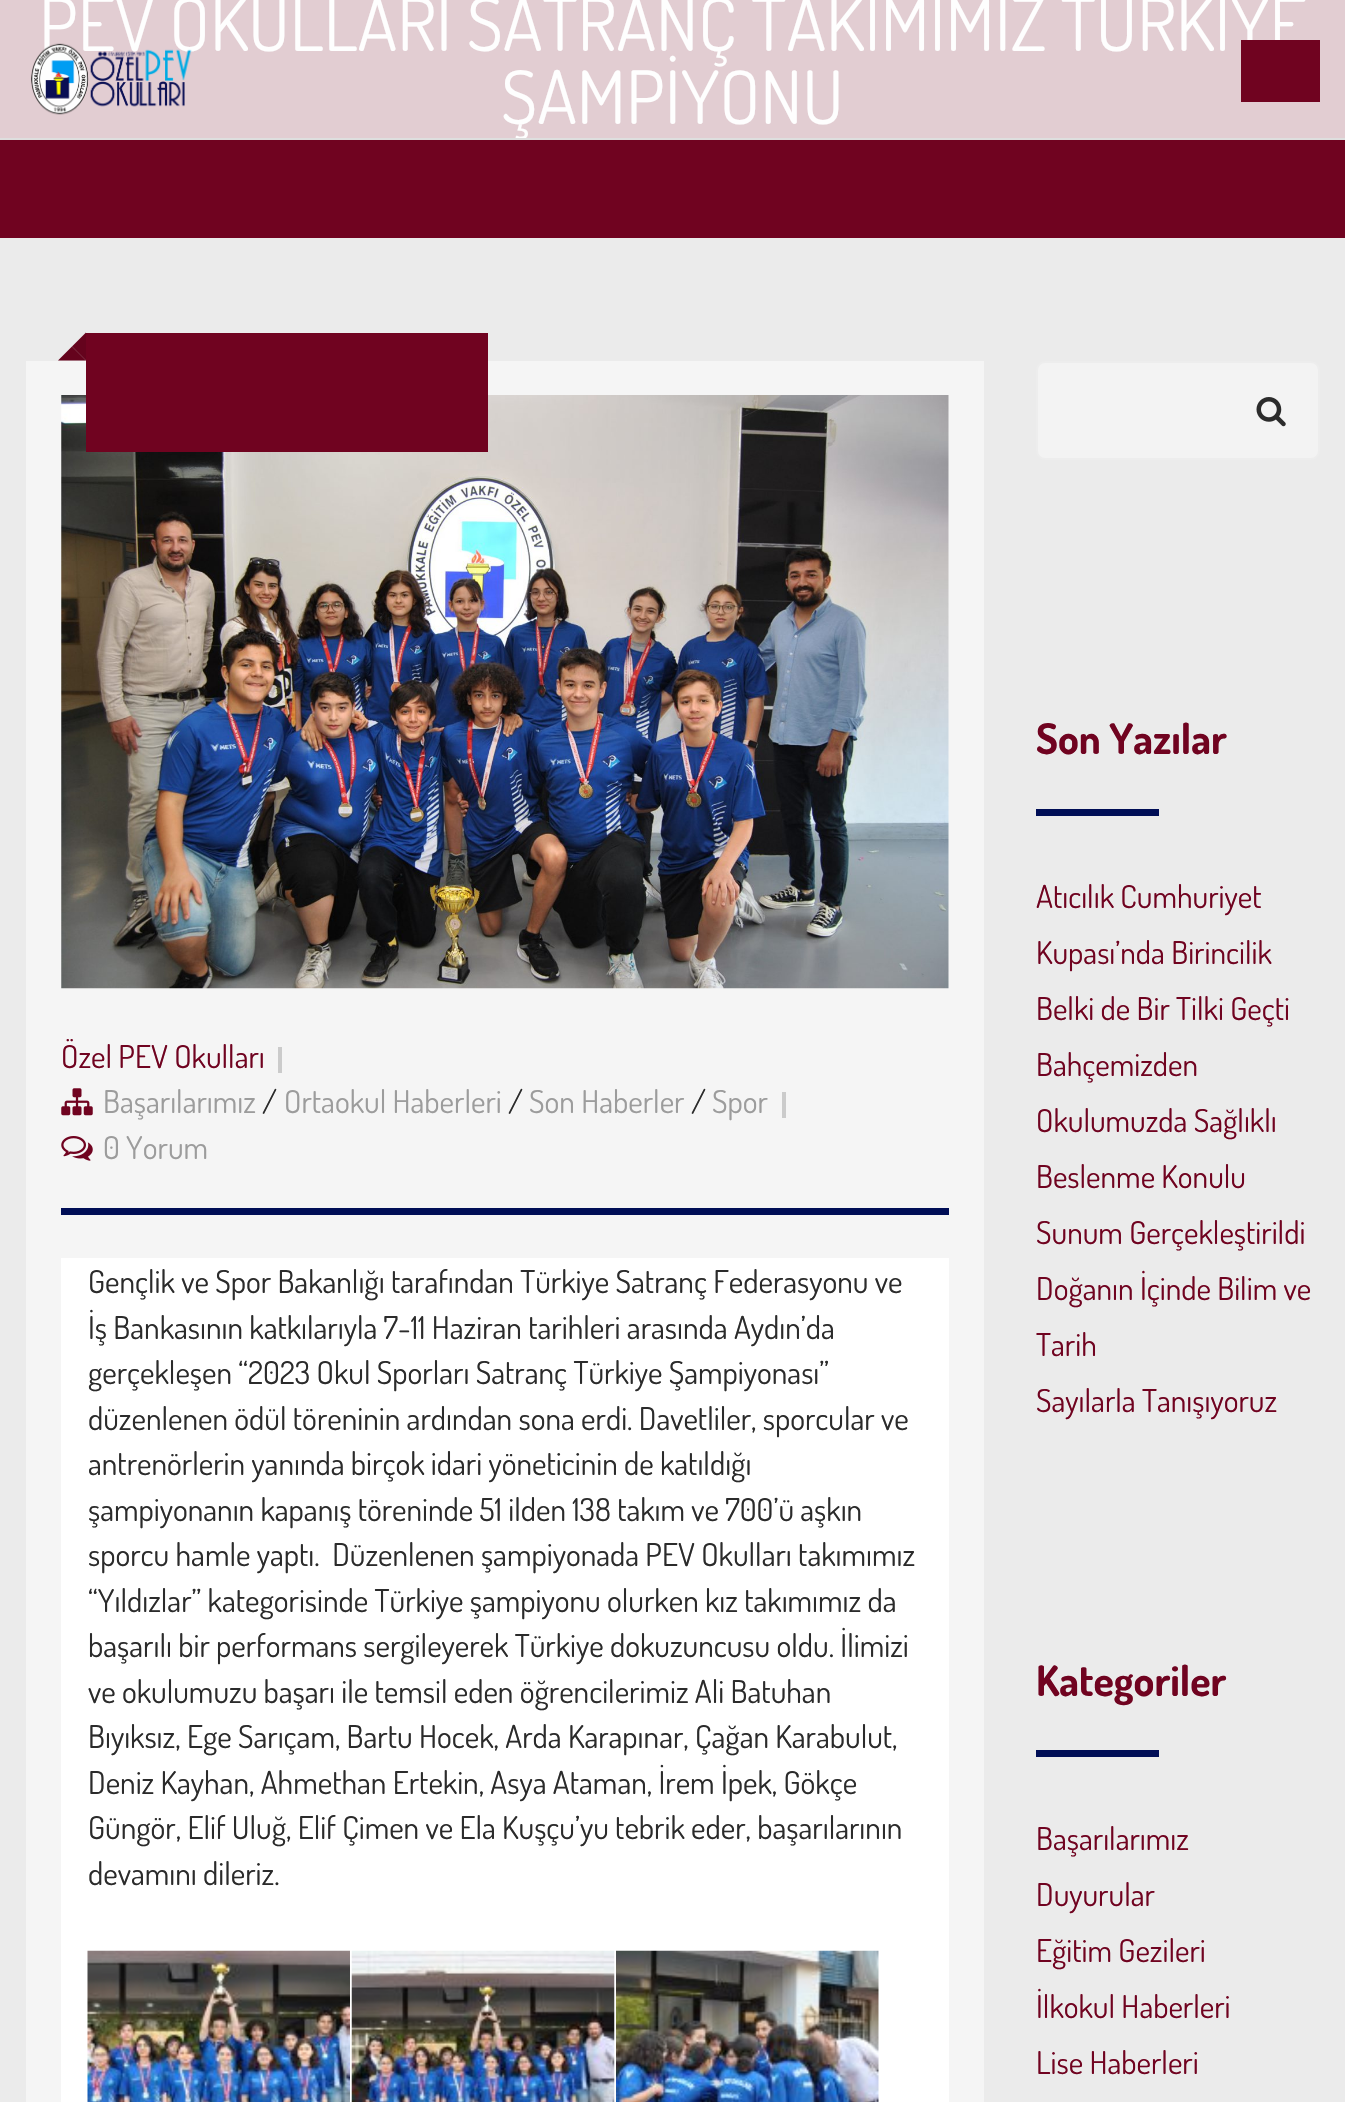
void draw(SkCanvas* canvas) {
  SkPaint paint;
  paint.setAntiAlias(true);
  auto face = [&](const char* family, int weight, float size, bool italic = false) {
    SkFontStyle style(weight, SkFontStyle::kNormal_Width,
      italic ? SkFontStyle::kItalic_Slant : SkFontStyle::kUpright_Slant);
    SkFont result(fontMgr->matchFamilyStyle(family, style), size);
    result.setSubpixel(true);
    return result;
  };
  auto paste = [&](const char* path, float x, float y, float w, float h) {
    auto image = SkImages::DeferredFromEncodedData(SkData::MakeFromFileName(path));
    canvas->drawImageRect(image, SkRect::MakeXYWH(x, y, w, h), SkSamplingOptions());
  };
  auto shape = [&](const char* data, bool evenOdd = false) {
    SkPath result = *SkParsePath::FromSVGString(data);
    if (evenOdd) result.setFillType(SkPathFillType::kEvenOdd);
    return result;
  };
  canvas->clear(0xffebebeb);
  {
    const struct { float x, y, w, h; SkColor color; } items[] = {
      {0, 140, 1345, 98, 0xff700320},
      {0, 0, 1345, 138, 0xffe2cdd2},
      {26, 361, 958, 1741, 0xfff5f5f5},
    };
    for (auto [x, y, w, h, color] : items) {
      paint.setColor(color);
      canvas->drawRect(SkRect::MakeXYWH(x, y, w, h), paint);
    }
  }
  paste("img/2.png", 61, 395, 888, 594);
  paint.setColor(0xff700320);
  canvas->drawRect(SkRect::MakeXYWH(86, 333, 402, 119), paint);
  canvas->drawPath(shape("M86 332.5V360.5L72 346.5Z"), paint);
  canvas->drawPath(shape("M86 360.5H58L72 346.5Z"), paint);
  paint.setColor(0x1a000000);
  canvas->drawPath(shape("M86 332.5V360.5L72 346.5Z"), paint);
  canvas->drawPath(shape("M86 360.5H58L72 346.5Z"), paint);
  paint.setColor(0xff000e56);
  canvas->drawRect(SkRect::MakeXYWH(61, 1208, 888, 7), paint);
  paint.setColor(0xffcbcbcb);
  canvas->drawRect(SkRect::MakeXYWH(278, 1047, 4, 26), paint);
  paste("img/3.png", 61, 1088, 32, 28);
  canvas->drawRect(SkRect::MakeXYWH(782, 1092, 4, 26), paint);
  paste("img/4.png", 61, 1136, 32, 25);
  paint.setColor(0xffffffff);
  canvas->drawRect(SkRect::MakeXYWH(61, 1258, 888, 844), paint);
  paste("img/5.png", 87, 1950, 263, 152);
  paste("img/6.png", 351, 1950, 264, 152);
  paste("img/7.png", 616, 1950, 263, 152);
  paint.setColor(0xfff3f3f3);
  canvas->drawRoundRect(SkRect::MakeXYWH(1037, 362, 282, 97), 8, 8, paint);
  paint.setStroke(true);
  paint.setStrokeWidth(2);
  paint.setColor(0xffededed);
  canvas->drawRoundRect(SkRect::MakeXYWH(1037, 362, 282, 97), 8, 8, paint);
  paste("img/8.png", 1256, 397, 30, 30);
  paint.setStroke(false);
  paint.setColor(0xff000e56);
  canvas->drawRect(SkRect::MakeXYWH(1036, 809, 123, 7), paint);
  canvas->drawRect(SkRect::MakeXYWH(1036, 1750, 123, 7), paint);
  auto f0 = face("Dosis", 400, 73.5f);
  paint.setColor(0xfffefefe);
  canvas->drawString("PEV OKULLARI SATRANÇ TAKIMIMIZ TÜRKİYE", 39, 51, f0, paint);
  canvas->drawString("ŞAMPİYONU", 501, 124, f0, paint);
  paint.setColor(0xffdedede);
  canvas->drawRect(SkRect::MakeXYWH(0, 138, 1345, 2), paint);
  paste("img/1.png", 31, 43, 161, 72);
  paint.setColor(0xff700320);
  canvas->drawRect(SkRect::MakeXYWH(1241, 40, 79, 62), paint);
  auto f1 = face("Dosis", 400, 31.5f);
  canvas->drawString("Özel PEV Okulları", 61, 1068, f1, paint);
  paint.setColor(0xff9c9c9c);
  canvas->drawString("Başarılarımız", 103, 1113, f1, paint);
  paint.setColor(0xff2b2b2b);
  canvas->drawString("/", 262, 1113, f1, paint);
  paint.setColor(0xff9c9c9c);
  canvas->drawString("Ortaokul Haberleri", 284, 1113, f1, paint);
  paint.setColor(0xff2b2b2b);
  canvas->drawString("/", 508, 1113, f1, paint);
  paint.setColor(0xff9c9c9c);
  canvas->drawString("Son Haberler", 529, 1113, f1, paint);
  paint.setColor(0xff2b2b2b);
  canvas->drawString("/", 691, 1113, f1, paint);
  paint.setColor(0xff9c9c9c);
  canvas->drawString("Spor", 712, 1113, f1, paint);
  canvas->drawString("0 Yorum", 103, 1159, f1, paint);
  paint.setColor(0xff2b2b2b);
  {
    const struct { const char* s; float x, y; } items[] = {
      {"Gençlik ve Spor Bakanlığı tarafından Türkiye Satranç Federasyonu ve", 88, 1293},
      {"İş Bankasının katkılarıyla 7-11 Haziran tarihleri arasında Aydın’da", 88, 1339},
      {"gerçekleşen “2023 Okul Sporları Satranç Türkiye Şampiyonası”", 88, 1384},
      {"düzenlenen ödül töreninin ardından sona erdi. Davetliler, sporcular ve", 88, 1430},
      {"antrenörlerin yanında birçok idari yöneticinin de katıldığı", 88, 1475},
      {"şampiyonanın kapanış töreninde 51 ilden 138 takım ve 700’ü aşkın", 88, 1521},
      {"sporcu hamle yaptı.  Düzenlenen şampiyonada PEV Okulları takımımız", 88, 1566},
      {"“Yıldızlar” kategorisinde Türkiye şampiyonu olurken kız takımımız da", 88, 1612},
      {"başarılı bir performans sergileyerek Türkiye dokuzuncusu oldu. İlimizi", 88, 1657},
      {"ve okulumuzu başarı ile temsil eden öğrencilerimiz Ali Batuhan", 88, 1703},
      {"Bıyıksız, Ege Sarıçam, Bartu Hocek, Arda Karapınar, Çağan Karabulut,", 88, 1748},
      {"Deniz Kayhan, Ahmethan Ertekin, Asya Ataman, İrem İpek, Gökçe", 88, 1794},
      {"Güngör, Elif Uluğ, Elif Çimen ve Ela Kuşçu’yu tebrik eder, başarılarının", 88, 1839},
      {"devamını dileriz.", 88, 1885},
    };
    for (auto [s, x, y] : items) {
      canvas->drawString(s, x, y, f1, paint);
    }
  }
  auto f2 = face("Dosis", 700, 42);
  paint.setColor(0xff700320);
  canvas->drawString("Son Yazılar", 1036, 754, f2, paint);
  {
    const struct { const char* s; float x, y; } items[] = {
      {"Atıcılık Cumhuriyet", 1036, 908},
      {"Kupası’nda Birincilik", 1036, 964},
      {"Belki de Bir Tilki Geçti", 1036, 1020},
      {"Bahçemizden", 1036, 1076},
      {"Okulumuzda Sağlıklı", 1036, 1132},
      {"Beslenme Konulu", 1036, 1188},
      {"Sunum Gerçekleştirildi", 1036, 1244},
      {"Doğanın İçinde Bilim ve", 1036, 1300},
      {"Tarih", 1036, 1356},
      {"Sayılarla Tanışıyoruz", 1036, 1412},
    };
    for (auto [s, x, y] : items) {
      canvas->drawString(s, x, y, f1, paint);
    }
  }
  canvas->drawString("Kategoriler", 1036, 1696, f2, paint);
  {
    const struct { const char* s; float x, y; } items[] = {
      {"Başarılarımız", 1036, 1850},
      {"Duyurular", 1036, 1906},
      {"Eğitim Gezileri", 1036, 1962},
      {"İlkokul Haberleri", 1036, 2018},
      {"Lise Haberleri", 1036, 2074},
    };
    for (auto [s, x, y] : items) {
      canvas->drawString(s, x, y, f1, paint);
    }
  }
}
